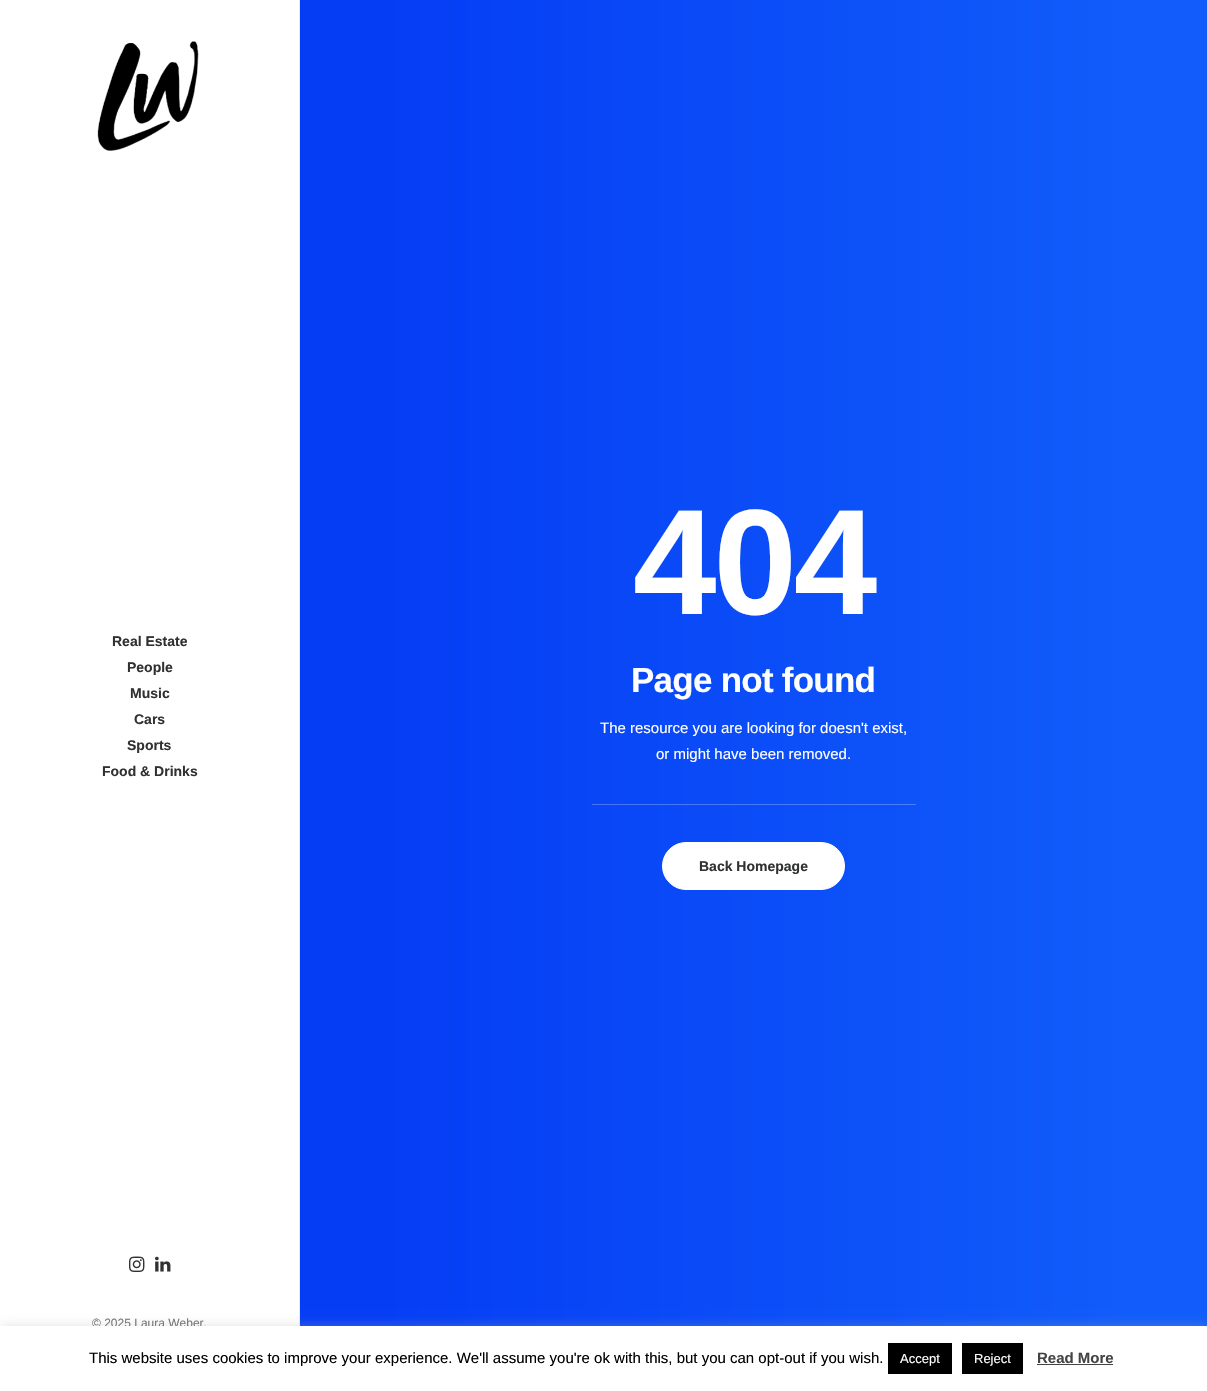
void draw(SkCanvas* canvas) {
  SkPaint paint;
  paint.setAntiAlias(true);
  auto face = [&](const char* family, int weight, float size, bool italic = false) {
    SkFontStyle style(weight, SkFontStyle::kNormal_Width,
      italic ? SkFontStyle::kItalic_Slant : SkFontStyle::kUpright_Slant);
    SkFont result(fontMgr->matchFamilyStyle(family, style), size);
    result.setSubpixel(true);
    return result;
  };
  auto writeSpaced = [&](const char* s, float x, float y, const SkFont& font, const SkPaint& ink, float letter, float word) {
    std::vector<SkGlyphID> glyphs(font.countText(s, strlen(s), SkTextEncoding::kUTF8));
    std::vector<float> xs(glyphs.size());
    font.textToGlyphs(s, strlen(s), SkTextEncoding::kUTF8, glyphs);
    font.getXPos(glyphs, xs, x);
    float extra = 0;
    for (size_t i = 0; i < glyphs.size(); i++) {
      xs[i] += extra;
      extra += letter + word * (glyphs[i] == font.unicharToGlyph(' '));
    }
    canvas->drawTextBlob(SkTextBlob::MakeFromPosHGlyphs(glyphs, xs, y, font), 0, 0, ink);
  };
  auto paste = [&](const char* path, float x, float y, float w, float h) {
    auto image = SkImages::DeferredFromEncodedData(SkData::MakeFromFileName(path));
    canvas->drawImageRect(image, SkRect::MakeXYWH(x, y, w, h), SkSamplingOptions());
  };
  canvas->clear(0xffffffff);
  paint.setColor(0xffebebeb);
  canvas->drawRect(SkRect::MakeXYWH(299, 0, 1, 1326), paint);
  paste("img/1.png", 97, 41, 102, 110);
  paste("img/2.png", 129, 1256, 16, 16);
  paste("img/3.png", 155, 1256, 16, 16);
  {
    const SkColor colors[] = {0xff115cfa, 0xff053df5};
    const float stops[] = {0.09f, 0.91f};
    const SkPoint ends[] = {{1207, 695}, {300, 695}};
    paint.setShader(SkGradientShader::MakeLinear(ends, colors, stops, 2, SkTileMode::kClamp));
    paint.setAlpha(255);
  }
  canvas->drawRect(SkRect::MakeXYWH(300, 0, 907, 1326), paint);
  {
    const SkColor colors[] = {0xff4d85fb, 0xff446ef8};
    const float stops[] = {0.09f, 0.91f};
    const SkPoint ends[] = {{1207, 695}, {300, 695}};
    paint.setShader(SkGradientShader::MakeLinear(ends, colors, stops, 2, SkTileMode::kClamp));
    paint.setAlpha(255);
  }
  canvas->drawRect(SkRect::MakeXYWH(592, 804, 324, 1), paint);
  paint.setShader(nullptr);
  paint.setColor(0xffffffff);
  canvas->drawRoundRect(SkRect::MakeXYWH(662.5f, 842.5f, 182, 47), 23.5f, 23.5f, paint);
  paint.setStroke(true);
  paint.setStrokeWidth(1);
  canvas->drawRoundRect(SkRect::MakeXYWH(662.5f, 842.5f, 182, 47), 23.5f, 23.5f, paint);
  paint.setStroke(false);
  paint.setColor(0x4dacabab);
  paint.setMaskFilter(SkMaskFilter::MakeBlur(kNormal_SkBlurStyle, 5));
  canvas->drawRect(SkRect::MakeXYWH(0, 1325, 1207, 65), paint);
  paint.setMaskFilter(nullptr);
  auto f0 = face("Liberation Sans", 700, 14);
  paint.setColor(0xff303133);
  {
    const struct { const char* s; float x, y; } items[] = {
      {"Real Estate", 112, 646},
      {"People", 127, 672},
      {"Music", 130, 698},
      {"Cars", 134, 724},
      {"Sports", 127, 750},
      {"Food & Drinks", 102, 776},
    };
    for (auto [s, x, y] : items) {
      canvas->drawString(s, x, y, f0, paint);
    }
  }
  auto f1 = face("Liberation Sans", 400, 12);
  paint.setColor(0xff777777);
  canvas->drawString("© 2025 Laura Weber.", 92, 1327, f1, paint);
  auto f2 = face("Liberation Sans", 700, 150);
  paint.setColor(0xffffffff);
  writeSpaced("404", 633, 614, f2, paint, -3, 0);
  auto f3 = face("Liberation Sans", 700, 35);
  writeSpaced("Page not found", 631, 692, f3, paint, -0.75f, 0);
  auto f4 = face("Liberation Sans", 400, 15);
  canvas->drawString("The resource you are looking for doesn't exist,", 600, 733, f4, paint);
  canvas->drawString("or might have been removed.", 656, 759, f4, paint);
  paint.setColor(0xff303133);
  canvas->drawString("Back Homepage", 699, 871, f0, paint);
  paint.setColor(0xffffffff);
  canvas->drawRect(SkRect::MakeXYWH(0, 1326, 1207, 65), paint);
  paint.setColor(0xff000000);
  canvas->drawString("This website uses cookies to improve your experience. We'll assume you're ok with this, but you can opt-out if you wish.", 89, 1363, f4, paint);
  canvas->drawRect(SkRect::MakeXYWH(888, 1343, 64, 31), paint);
  auto f5 = face("Liberation Sans", 400, 13);
  paint.setColor(0xffffffff);
  canvas->drawString("Accept", 900, 1363, f5, paint);
  paint.setColor(0xff000000);
  canvas->drawRect(SkRect::MakeXYWH(962, 1343, 61, 31), paint);
  paint.setColor(0xffffffff);
  canvas->drawString("Reject", 974, 1363, f5, paint);
  auto f6 = face("Liberation Sans", 700, 15);
  paint.setColor(0xff444444);
  canvas->drawString("Read More", 1037, 1363, f6, paint);
  canvas->drawRect(SkRect::MakeXYWH(1037, 1364, 76, 1), paint);
}
